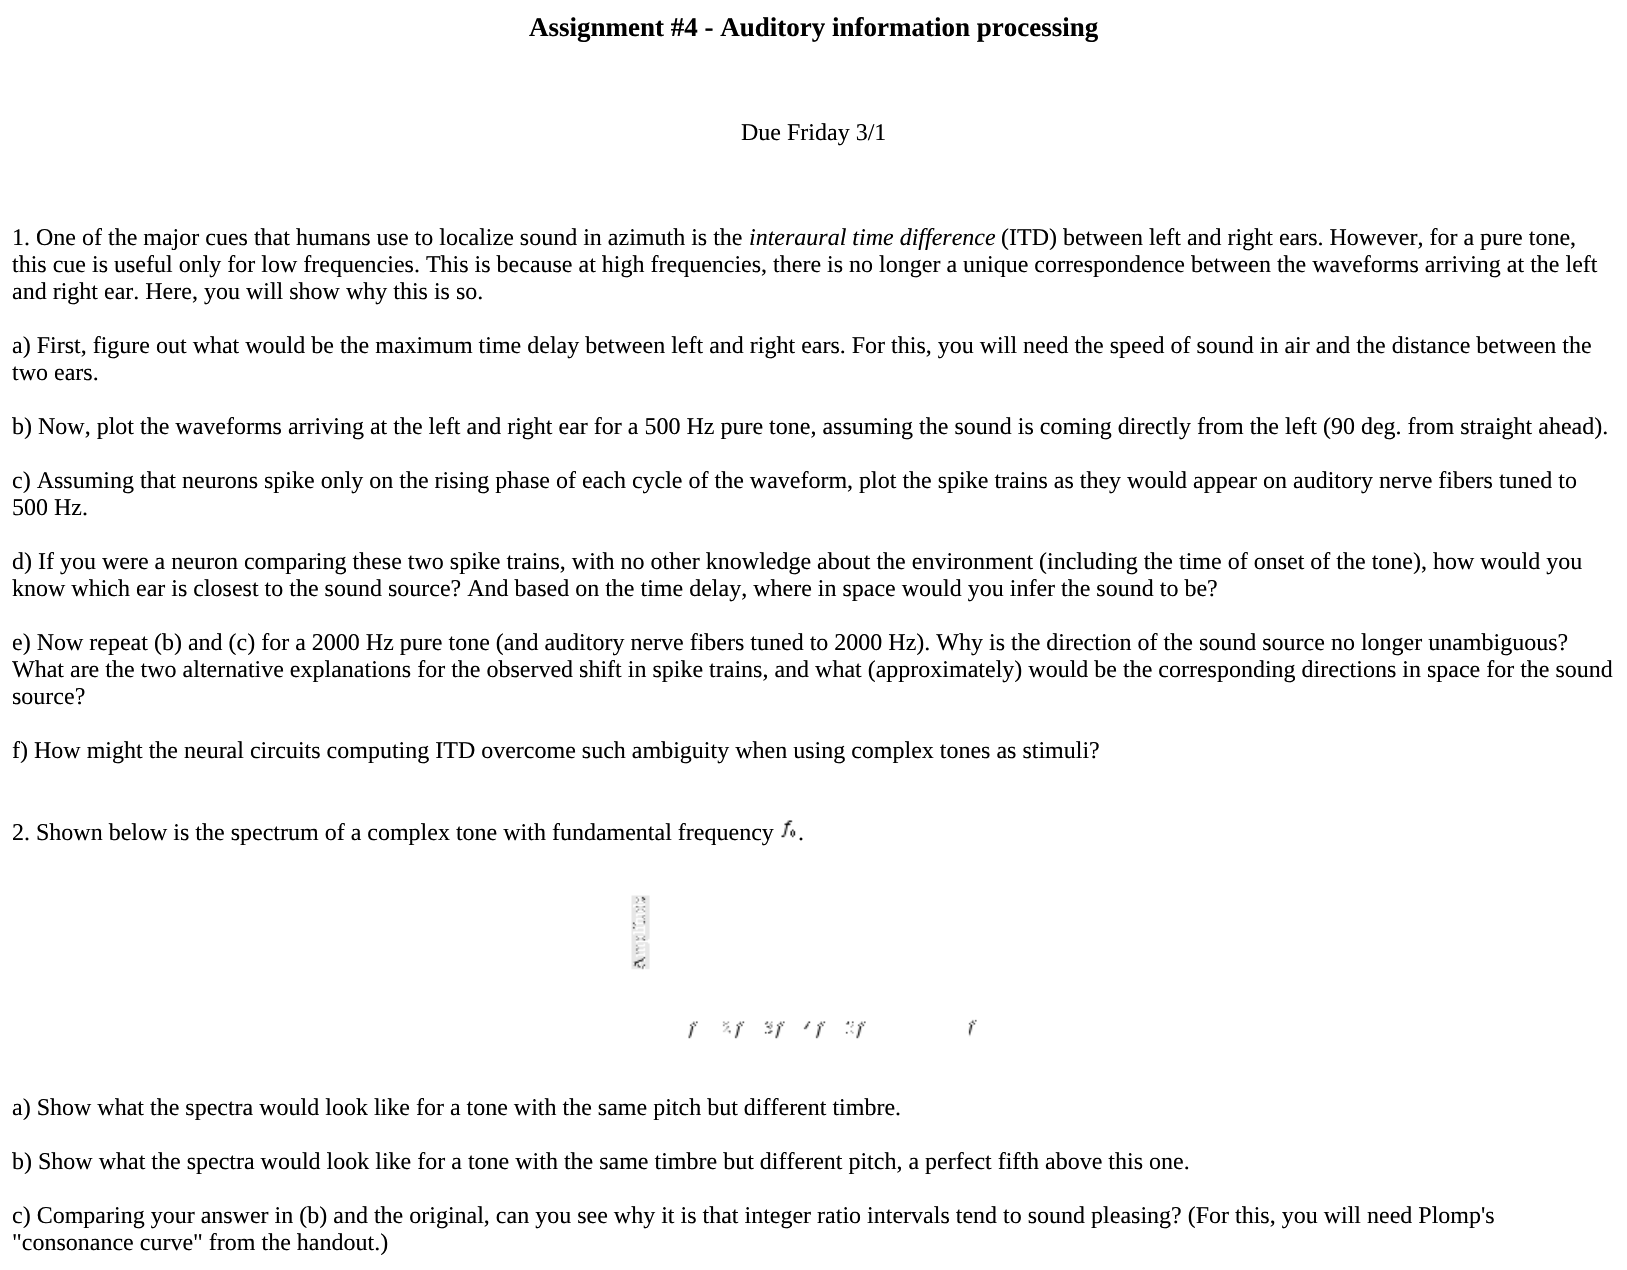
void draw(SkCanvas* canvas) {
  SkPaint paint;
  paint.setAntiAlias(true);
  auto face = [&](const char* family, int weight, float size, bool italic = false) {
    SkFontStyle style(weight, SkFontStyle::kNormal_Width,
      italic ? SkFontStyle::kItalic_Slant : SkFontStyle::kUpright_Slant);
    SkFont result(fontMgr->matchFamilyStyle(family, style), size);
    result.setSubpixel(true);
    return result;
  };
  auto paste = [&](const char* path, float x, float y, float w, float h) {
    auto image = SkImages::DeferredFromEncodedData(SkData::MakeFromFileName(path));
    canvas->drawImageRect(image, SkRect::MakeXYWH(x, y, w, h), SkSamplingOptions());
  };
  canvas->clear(0xffffffff);
  paste("img/1.png", 781, 820, 15, 18);
  paste("img/2.png", 631, 895, 346, 144);
  auto f0 = face("Liberation Serif", 700, 27);
  paint.setColor(0xff000000);
  canvas->drawString("Assignment #4 - Auditory information processing", 529, 36, f0, paint);
  auto f1 = face("Liberation Serif", 400, 24);
  canvas->drawString("Due Friday 3/1", 741, 140, f1, paint);
  canvas->drawString("1. One of the major cues that humans use to localize sound in azimuth is the", 12, 245, f1, paint);
  auto f2 = face("Liberation Serif", 400, 24, true);
  canvas->drawString("interaural time difference", 749, 245, f2, paint);
  {
    const struct { const char* s; float x, y; } items[] = {
      {"(ITD) between left and right ears. However, for a pure tone,", 1001, 245},
      {"this cue is useful only for low frequencies. This is because at high frequencies, there is no longer a unique correspondence between the waveforms arriving at the left", 12, 272},
      {"and right ear. Here, you will show why this is so.", 12, 299},
      {"a) First, figure out what would be the maximum time delay between left and right ears. For this, you will need the speed of sound in air and the distance between the", 12, 353},
      {"two ears.", 12, 380},
      {"b) Now, plot the waveforms arriving at the left and right ear for a 500 Hz pure tone, assuming the sound is coming directly from the left (90 deg. from straight ahead).", 12, 434},
      {"c) Assuming that neurons spike only on the rising phase of each cycle of the waveform, plot the spike trains as they would appear on auditory nerve fibers tuned to", 12, 488},
      {"500 Hz.", 12, 515},
      {"d) If you were a neuron comparing these two spike trains, with no other knowledge about the environment (including the time of onset of the tone), how would you", 12, 569},
      {"know which ear is closest to the sound source? And based on the time delay, where in space would you infer the sound to be?", 12, 596},
      {"e) Now repeat (b) and (c) for a 2000 Hz pure tone (and auditory nerve fibers tuned to 2000 Hz). Why is the direction of the sound source no longer unambiguous?", 12, 650},
      {"What are the two alternative explanations for the observed shift in spike trains, and what (approximately) would be the corresponding directions in space for the sound", 12, 677},
      {"source?", 12, 704},
      {"f) How might the neural circuits computing ITD overcome such ambiguity when using complex tones as stimuli?", 12, 758},
      {"2. Shown below is the spectrum of a complex tone with fundamental frequency", 12, 840},
      {".", 798, 840},
      {"a) Show what the spectra would look like for a tone with the same pitch but different timbre.", 12, 1115},
      {"b) Show what the spectra would look like for a tone with the same timbre but different pitch, a perfect fifth above this one.", 12, 1169},
      {"c) Comparing your answer in (b) and the original, can you see why it is that integer ratio intervals tend to sound pleasing? (For this, you will need Plomp's", 12, 1223},
      {"\"consonance curve\" from the handout.)", 12, 1250},
    };
    for (auto [s, x, y] : items) {
      canvas->drawString(s, x, y, f1, paint);
    }
  }
}
